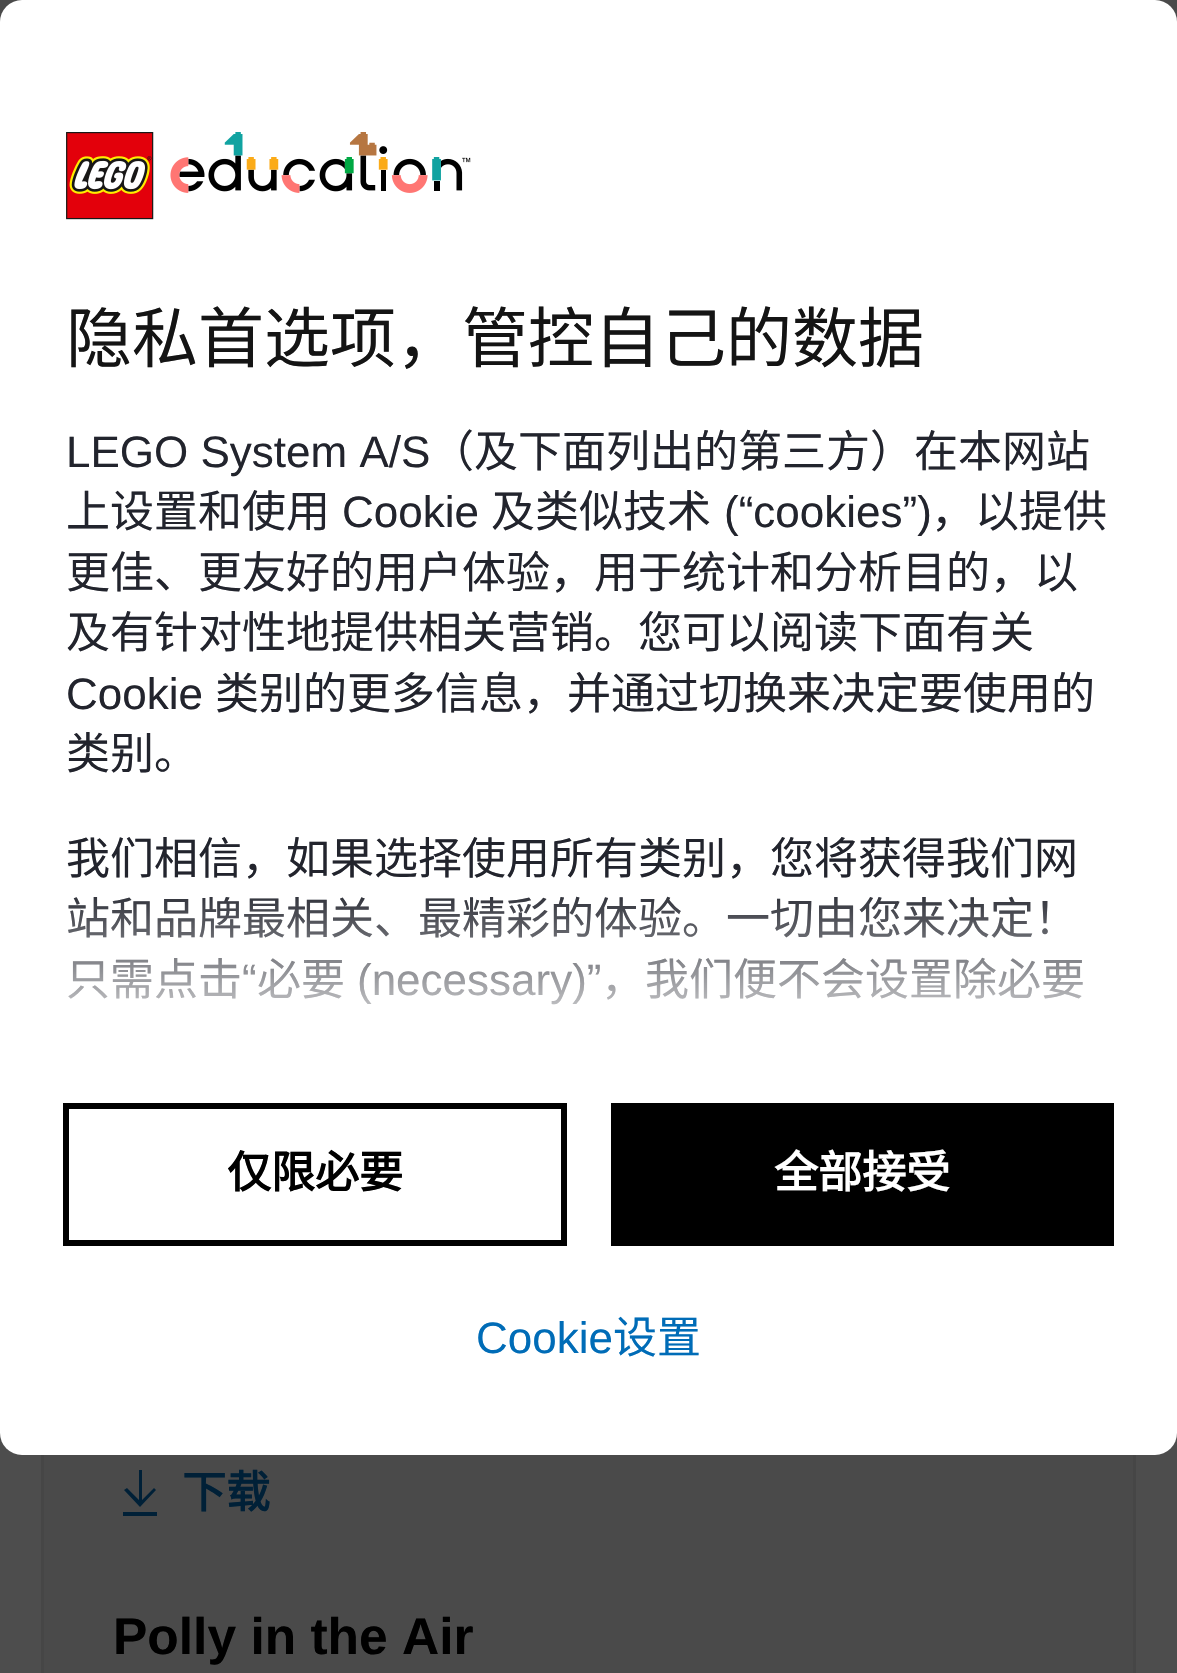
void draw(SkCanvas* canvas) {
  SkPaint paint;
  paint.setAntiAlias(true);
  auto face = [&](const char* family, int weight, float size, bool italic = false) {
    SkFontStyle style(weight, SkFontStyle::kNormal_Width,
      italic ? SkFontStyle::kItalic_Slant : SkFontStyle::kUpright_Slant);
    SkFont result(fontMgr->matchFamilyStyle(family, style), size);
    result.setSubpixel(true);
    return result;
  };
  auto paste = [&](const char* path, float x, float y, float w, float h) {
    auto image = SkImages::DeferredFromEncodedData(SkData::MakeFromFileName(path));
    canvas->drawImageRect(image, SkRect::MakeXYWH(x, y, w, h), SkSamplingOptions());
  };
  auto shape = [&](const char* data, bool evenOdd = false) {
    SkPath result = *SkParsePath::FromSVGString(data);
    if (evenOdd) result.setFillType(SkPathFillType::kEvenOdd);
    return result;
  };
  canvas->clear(0xff4d4d4d);
  paint.setColor(0xff4a4a4a);
  canvas->drawRect(SkRect::MakeXYWH(0, 0, 1177, 22), paint);
  paint.setStroke(true);
  paint.setStrokeWidth(3);
  paint.setColor(0xff464646);
  canvas->drawRect(SkRect::MakeXYWH(42.5f, 738.5f, 1092, 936), paint);
  paint.setStroke(false);
  paint.setColor(0xffffffff);
  canvas->drawRoundRect(SkRect::MakeXYWH(0, 0, 1177, 1455), 22, 22, paint);
  paste("img/1.png", 66, 132, 405, 88);
  paint.setStroke(true);
  paint.setStrokeWidth(6);
  paint.setColor(0xff000000);
  canvas->drawRect(SkRect::MakeXYWH(66, 1106, 498, 137), paint);
  paint.setStroke(false);
  canvas->drawRect(SkRect::MakeXYWH(611, 1103, 503, 143), paint);
  paint.setColor(0xff4a4a4a);
  canvas->drawRect(SkRect::MakeXYWH(44, 1455, 1089, 218), paint);
  paint.setColor(0xff002037);
  canvas->drawPath(shape("M157 1512V1516H123V1512ZM142 1470V1500L154 1488L156 1490L140 1507L124 1490L127 1488L139 1500V1470Z"), paint);
  auto f0 = face("Noto Sans CJK SC", 400, 66);
  paint.setColor(0xff141414);
  canvas->drawString("隐私首选项，管控自己的数据", 66, 362, f0, paint);
  auto f1 = face("Liberation Sans", 400, 44);
  paint.setColor(0xff22242d);
  canvas->drawString("LEGO System A/S", 66, 467, f1, paint);
  auto f2 = face("Noto Sans CJK SC", 400, 44);
  canvas->drawString("（及下面列出的第三方）在本网站", 430, 467, f2, paint);
  canvas->drawString("上设置和使用", 66, 527, f2, paint);
  canvas->drawString("Cookie", 342, 527, f1, paint);
  canvas->drawString("及类似技术", 491, 527, f2, paint);
  canvas->drawString("(“cookies”)", 724, 527, f1, paint);
  {
    const struct { const char* s; float x, y; } items[] = {
      {"，以提供", 931, 527},
      {"更佳、更友好的用户体验，用于统计和分析目的，以", 66, 588},
      {"及有针对性地提供相关营销。您可以阅读下面有关", 66, 648},
    };
    for (auto [s, x, y] : items) {
      canvas->drawString(s, x, y, f2, paint);
    }
  }
  canvas->drawString("Cookie", 66, 709, f1, paint);
  {
    const struct { const char* s; float x, y; } items[] = {
      {"类别的更多信息，并通过切换来决定要使用的", 215, 709},
      {"类别。", 66, 769},
      {"我们相信，如果选择使用所有类别，您将获得我们网", 66, 874},
      {"站和品牌最相关、最精彩的体验。一切由您来决定！", 66, 934},
      {"只需点击", 66, 995},
    };
    for (auto [s, x, y] : items) {
      canvas->drawString(s, x, y, f2, paint);
    }
  }
  canvas->drawString("“", 242, 995, f1, paint);
  canvas->drawString("必要", 257, 995, f2, paint);
  canvas->drawString("(necessary)”", 357, 995, f1, paint);
  canvas->drawString("，我们便不会设置除必要", 601, 995, f2, paint);
  {
    const SkColor colors[] = {0x00ffffff, 0xffffffff};
    const float stops[] = {0, 1};
    const SkPoint ends[] = {{589, 883}, {589, 1059}};
    paint.setShader(SkGradientShader::MakeLinear(ends, colors, stops, 2, SkTileMode::kClamp));
    paint.setAlpha(255);
  }
  canvas->drawRect(SkRect::MakeXYWH(68, 897, 1016, 108), paint);
  auto f3 = face("Noto Sans CJK SC", 700, 44);
  paint.setShader(nullptr);
  paint.setColor(0xff000000);
  canvas->drawString("仅限必要", 227, 1188, f3, paint);
  paint.setColor(0xffffffff);
  canvas->drawString("全部接受", 774, 1188, f3, paint);
  paint.setColor(0xff006cb7);
  canvas->drawString("Cookie", 476, 1353, f1, paint);
  canvas->drawString("设置", 613, 1353, f2, paint);
  paint.setColor(0xff002037);
  canvas->drawString("下载", 182, 1508, f3, paint);
  auto f4 = face("Liberation Sans", 700, 51.5f);
  paint.setColor(0xff000000);
  canvas->drawString("Polly in the Air", 113, 1654, f4, paint);
}
